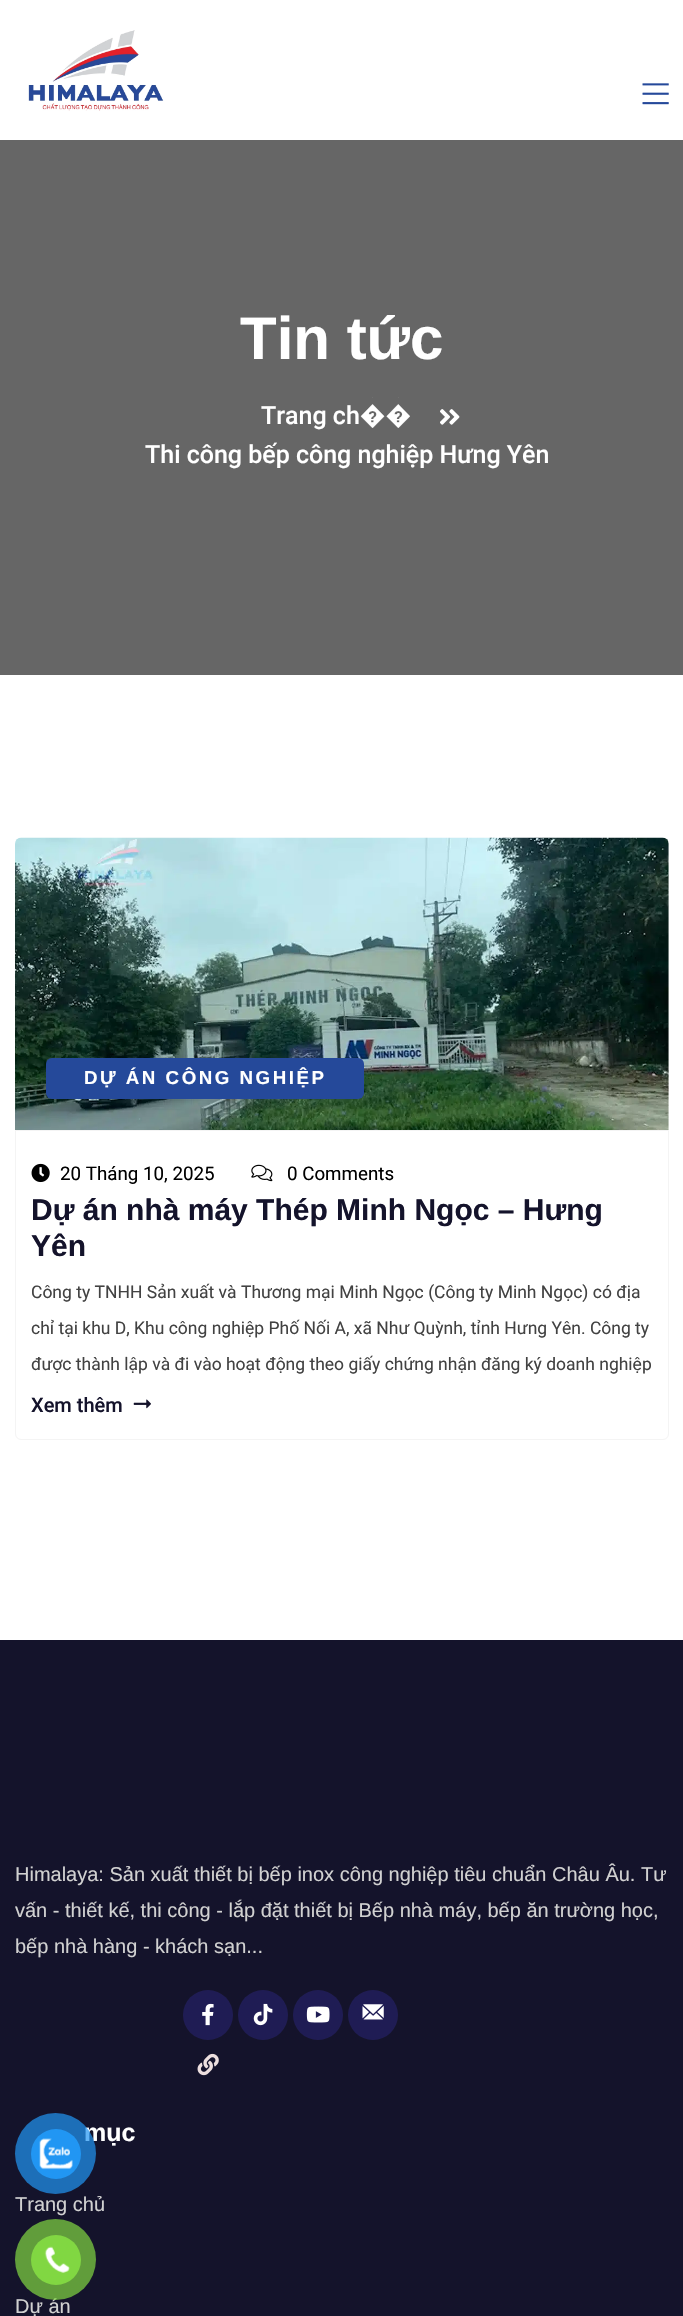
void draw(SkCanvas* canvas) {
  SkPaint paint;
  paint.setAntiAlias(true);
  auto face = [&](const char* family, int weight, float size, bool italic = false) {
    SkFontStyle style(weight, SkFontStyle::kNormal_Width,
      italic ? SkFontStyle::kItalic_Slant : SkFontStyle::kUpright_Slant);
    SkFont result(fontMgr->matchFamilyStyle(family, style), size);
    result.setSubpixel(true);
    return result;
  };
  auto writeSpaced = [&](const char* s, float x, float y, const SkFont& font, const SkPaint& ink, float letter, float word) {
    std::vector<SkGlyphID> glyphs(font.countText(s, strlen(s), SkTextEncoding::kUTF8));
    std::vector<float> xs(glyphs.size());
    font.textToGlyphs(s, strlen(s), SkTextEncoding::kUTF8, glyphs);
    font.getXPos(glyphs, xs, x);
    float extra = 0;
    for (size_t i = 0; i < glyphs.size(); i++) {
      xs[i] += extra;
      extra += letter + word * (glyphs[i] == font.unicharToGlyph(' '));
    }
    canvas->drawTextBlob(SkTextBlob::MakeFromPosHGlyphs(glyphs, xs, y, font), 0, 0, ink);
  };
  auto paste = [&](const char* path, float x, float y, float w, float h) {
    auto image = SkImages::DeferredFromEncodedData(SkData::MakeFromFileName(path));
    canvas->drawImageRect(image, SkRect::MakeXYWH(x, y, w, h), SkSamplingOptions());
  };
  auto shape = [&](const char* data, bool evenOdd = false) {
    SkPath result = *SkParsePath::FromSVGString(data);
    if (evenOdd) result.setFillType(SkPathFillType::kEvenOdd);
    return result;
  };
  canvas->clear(0xffffffff);
  paste("img/1.png", 28, 30, 136, 81);
  paste("img/2.png", 642, 83, 27, 22);
  paint.setColor(0xff666666);
  canvas->drawRect(SkRect::MakeXYWH(0, 140, 683, 535), paint);
  paste("img/3.png", 440, 409, 20, 16);
  paste("img/4.png", 15, 837, 654, 293);
  paint.setColor(0xff25499a);
  canvas->drawRoundRect(SkRect::MakeXYWH(46, 1058, 318, 41), 6, 6, paint);
  paint.setStroke(true);
  paint.setStrokeWidth(1);
  paint.setColor(0xfff4f4f4);
  canvas->drawPath(shape("M15.5 1130.5H668.5V1434C668.5 1437 666 1439.5 663 1439.5H21C18 1439.5 15.5 1437 15.5 1434Z"), paint);
  paste("img/5.png", 31, 1163, 19, 20);
  paste("img/6.png", 251, 1164, 22, 18);
  paste("img/7.png", 133, 1399, 18, 10);
  paint.setStroke(false);
  paint.setColor(0xff14132b);
  canvas->drawRect(SkRect::MakeXYWH(0, 1640, 683, 676), paint);
  paint.setColor(0xff1f1c54);
  canvas->drawCircle(208, 2015, 25, paint);
  paste("img/8.png", 202, 2003, 12, 23);
  canvas->drawCircle(263, 2015, 25, paint);
  paste("img/9.png", 253, 2003, 20, 23);
  canvas->drawCircle(318, 2015, 25, paint);
  paste("img/10.png", 306, 2006, 24, 17);
  canvas->drawCircle(373, 2015, 25, paint);
  paste("img/11.png", 362, 2004, 22, 16);
  paste("img/12.png", 197, 2053, 22, 23);
  auto f0 = face("Liberation Sans", 700, 60);
  paint.setColor(0xffffffff);
  canvas->drawString("Tin tức", 240, 359, f0, paint);
  auto f1 = face("Roboto", 500, 25);
  canvas->drawString("Trang ch��", 261, 424, f1, paint);
  canvas->drawString("Thi công bếp công nghiệp Hưng Yên", 145, 463, f1, paint);
  auto f2 = face("Liberation Sans", 700, 18.75f);
  writeSpaced("DỰ ÁN CÔNG NGHIỆP", 84, 1084, f2, paint, 2.5f, 0);
  auto f3 = face("Roboto", 400, 18.75f);
  paint.setColor(0xff000000);
  canvas->drawString("20 Tháng 10, 2025", 60, 1180, f3, paint);
  canvas->drawString("0 Comments", 287, 1180, f3, paint);
  auto f4 = face("Liberation Sans", 700, 30);
  paint.setColor(0xff14132b);
  canvas->drawString("Dự án nhà máy Thép Minh Ngọc – Hưng", 31, 1220, f4, paint);
  canvas->drawString("Yên", 31, 1256, f4, paint);
  auto f5 = face("Roboto", 400, 17.5f);
  paint.setColor(0xff424242);
  {
    const struct { const char* s; float x, y; } items[] = {
      {"Công ty TNHH Sản xuất và Thương mại Minh Ngọc (Công ty Minh Ngọc) có địa", 31, 1298},
      {"chỉ tại khu D, Khu công nghiệp Phố Nối A, xã Như Quỳnh, tỉnh Hưng Yên. Công ty", 31, 1334},
      {"được thành lập và đi vào hoạt động theo giấy chứng nhận đăng ký doanh nghiệp", 31, 1370},
    };
    for (auto [s, x, y] : items) {
      canvas->drawString(s, x, y, f5, paint);
    }
  }
  auto f6 = face("Roboto", 500, 20);
  paint.setColor(0xff14132b);
  canvas->drawString("Xem thêm", 31, 1412, f6, paint);
  auto f7 = face("Liberation Sans", 400, 20);
  paint.setColor(0xffd1d1d1);
  {
    const struct { const char* s; float x, y; } items[] = {
      {"Himalaya: Sản xuất thiết bị bếp inox công nghiệp tiêu chuẩn Châu Âu. Tư", 15, 1881},
      {"vấn - thiết kế, thi công - lắp đặt thiết bị Bếp nhà máy, bếp ăn trường học,", 15, 1917},
      {"bếp nhà hàng - khách sạn...", 15, 1953},
    };
    for (auto [s, x, y] : items) {
      canvas->drawString(s, x, y, f7, paint);
    }
  }
  auto f8 = face("Liberation Sans", 700, 25);
  paint.setColor(0xffffffff);
  canvas->drawString("mục", 84, 2141, f8, paint);
  paint.setColor(0xffd1d1d1);
  canvas->drawString("Trang chủ", 15, 2211, f7, paint);
  canvas->drawString("Dự án", 15, 2313, f7, paint);
  paint.setColor(0xb32196f3);
  canvas->drawCircle(55.5f, 2153.5f, 40.5f, paint);
  paint.setColor(0xff2196f3);
  canvas->drawCircle(56, 2154, 25, paint);
  paste("img/13.png", 39, 2138, 34, 32);
  paint.setColor(0xb381d742);
  canvas->drawCircle(55.5f, 2259.5f, 40.5f, paint);
  paint.setColor(0xff81d742);
  canvas->drawCircle(56, 2260, 25, paint);
  paste("img/14.png", 44, 2246, 26, 27);
}
